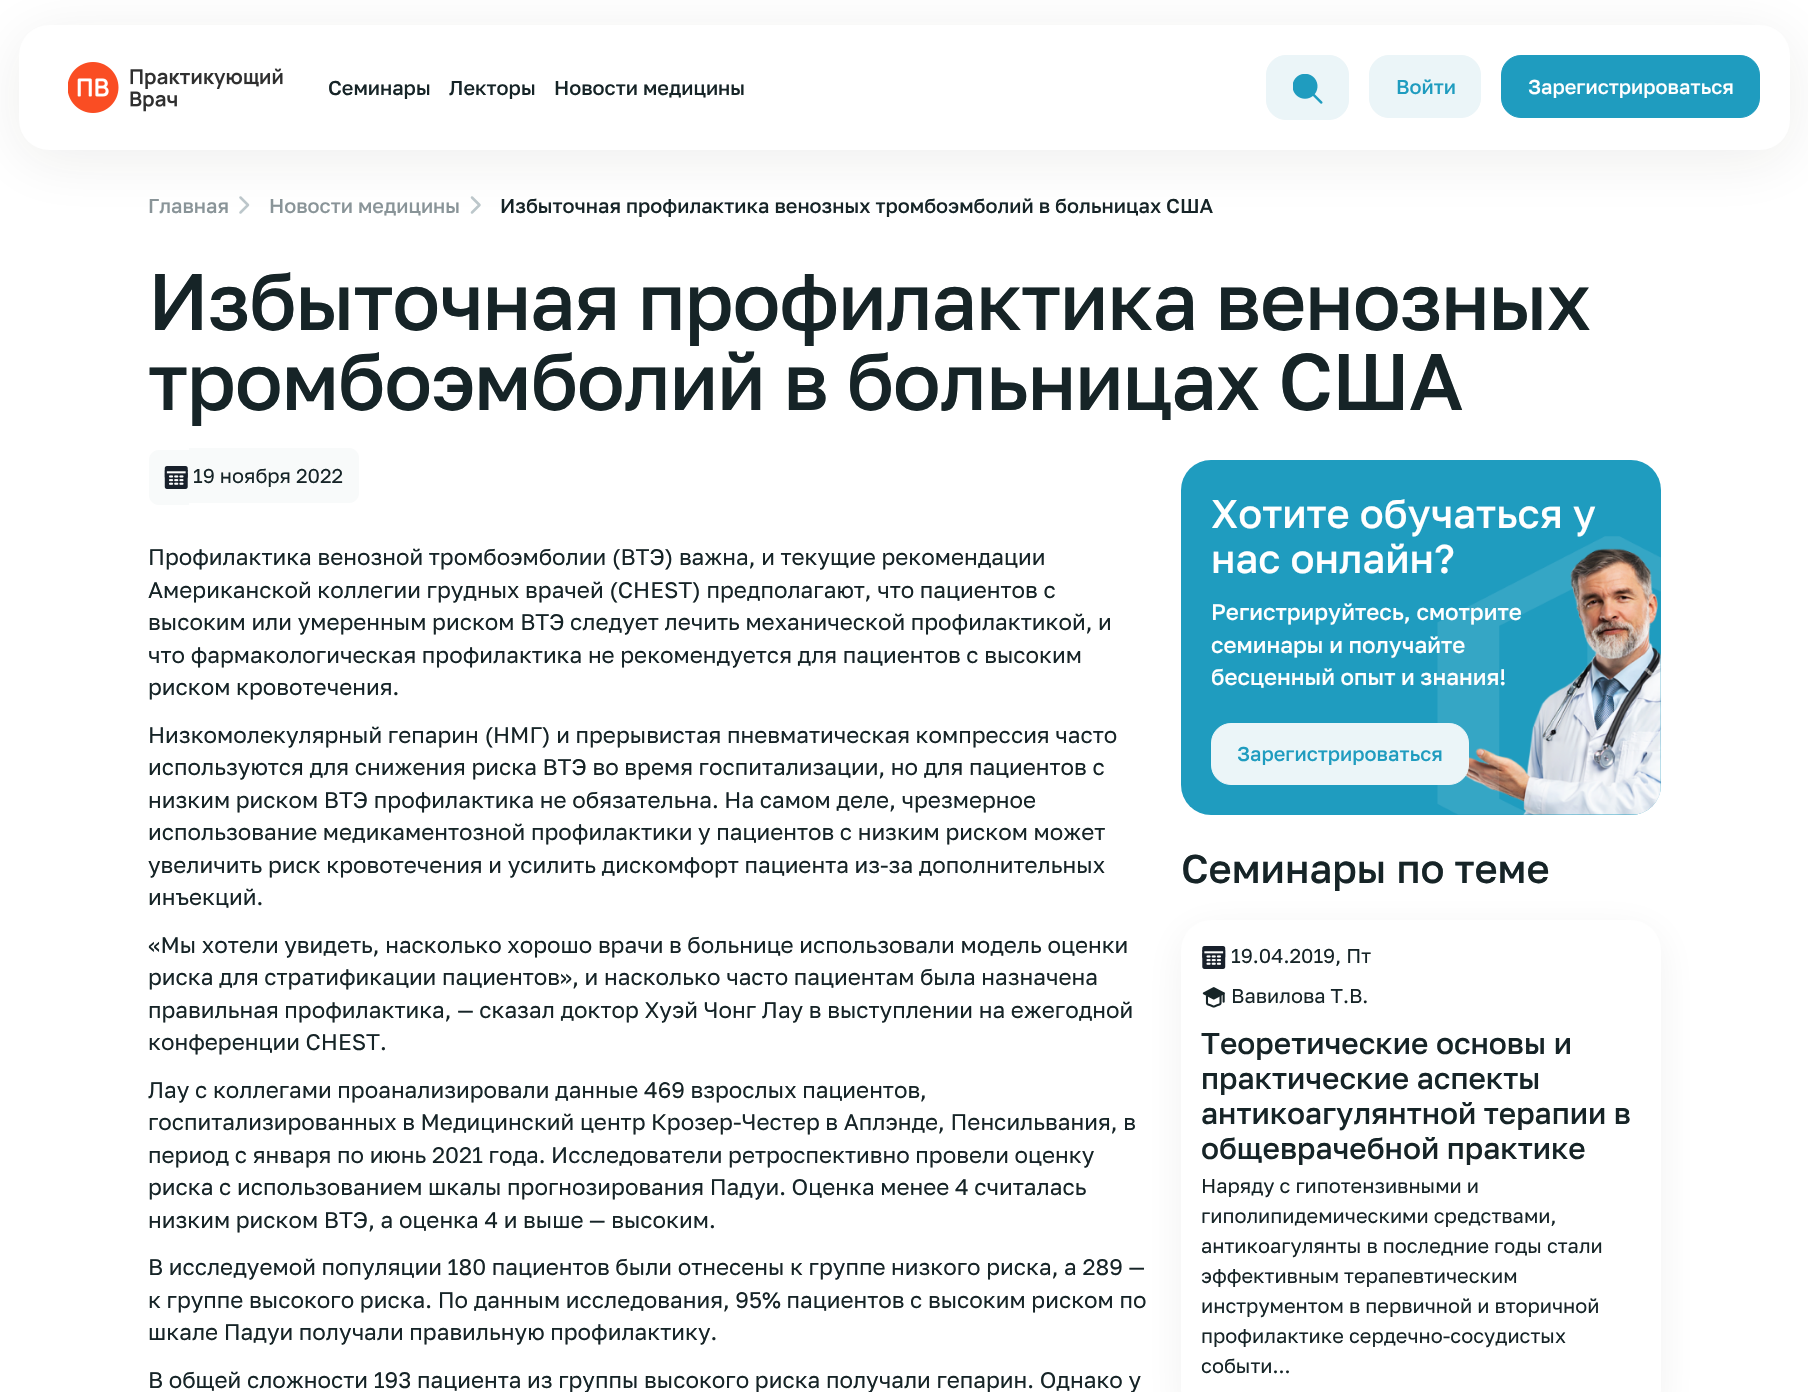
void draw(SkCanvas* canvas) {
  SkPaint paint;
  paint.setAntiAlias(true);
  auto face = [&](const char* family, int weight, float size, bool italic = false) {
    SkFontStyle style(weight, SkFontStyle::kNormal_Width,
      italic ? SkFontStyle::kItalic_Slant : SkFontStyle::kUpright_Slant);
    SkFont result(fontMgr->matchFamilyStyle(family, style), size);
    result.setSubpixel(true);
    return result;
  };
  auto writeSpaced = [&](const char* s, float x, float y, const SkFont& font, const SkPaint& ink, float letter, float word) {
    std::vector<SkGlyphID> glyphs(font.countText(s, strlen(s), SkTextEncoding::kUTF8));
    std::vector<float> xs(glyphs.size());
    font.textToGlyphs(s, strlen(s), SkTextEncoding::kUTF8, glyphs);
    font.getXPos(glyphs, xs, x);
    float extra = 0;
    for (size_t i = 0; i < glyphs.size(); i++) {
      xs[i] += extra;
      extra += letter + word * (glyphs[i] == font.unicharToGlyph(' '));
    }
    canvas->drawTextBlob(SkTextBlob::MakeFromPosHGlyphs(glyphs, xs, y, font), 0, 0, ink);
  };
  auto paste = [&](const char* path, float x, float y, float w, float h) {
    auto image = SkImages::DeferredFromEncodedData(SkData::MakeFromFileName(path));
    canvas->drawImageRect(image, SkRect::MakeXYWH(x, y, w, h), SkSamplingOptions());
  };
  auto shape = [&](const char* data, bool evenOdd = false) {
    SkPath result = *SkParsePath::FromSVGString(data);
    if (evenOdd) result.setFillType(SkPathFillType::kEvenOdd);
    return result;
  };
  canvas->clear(0xffffffff);
  paint.setStroke(true);
  paint.setStrokeWidth(2.5f);
  paint.setStrokeCap(SkPaint::kRound_Cap);
  paint.setStrokeJoin(SkPaint::kRound_Join);
  paint.setColor(0xffbcc7cb);
  canvas->drawPath(shape("M240.5 197.5L248 205L240.5 212.5"), paint);
  canvas->drawPath(shape("M472 197.5L479.5 205L472 212.5"), paint);
  paint.setStroke(false);
  paint.setColor(0x1423201e);
  paint.setMaskFilter(SkMaskFilter::MakeBlur(kNormal_SkBlurStyle, 30));
  canvas->drawRoundRect(SkRect::MakeXYWH(19, 35, 1771, 125), 30, 30, paint);
  paint.setMaskFilter(nullptr);
  paint.setColor(0xffffffff);
  canvas->drawRoundRect(SkRect::MakeXYWH(19, 25, 1771, 125), 30, 30, paint);
  paste("img/1.png", 68, 62, 215, 51);
  paint.setColor(0xffebf5f8);
  canvas->drawRoundRect(SkRect::MakeXYWH(1266.5f, 55.5f, 82, 64), 19.5f, 19.5f, paint);
  paint.setStroke(true);
  paint.setStrokeWidth(1);
  paint.setStrokeCap(SkPaint::kButt_Cap);
  paint.setStrokeJoin(SkPaint::kMiter_Join);
  canvas->drawRoundRect(SkRect::MakeXYWH(1266.5f, 55.5f, 82, 64), 19.5f, 19.5f, paint);
  paste("img/2.png", 1293, 74, 30, 30);
  paint.setStroke(false);
  canvas->drawRoundRect(SkRect::MakeXYWH(1369.5f, 55.5f, 111, 62), 19.5f, 19.5f, paint);
  paint.setStroke(true);
  canvas->drawRoundRect(SkRect::MakeXYWH(1369.5f, 55.5f, 111, 62), 19.5f, 19.5f, paint);
  paint.setStroke(false);
  paint.setColor(0xff1f9cbf);
  canvas->drawRoundRect(SkRect::MakeXYWH(1501.5f, 55.5f, 258, 62), 19.5f, 19.5f, paint);
  paint.setStroke(true);
  canvas->drawRoundRect(SkRect::MakeXYWH(1501.5f, 55.5f, 258, 62), 19.5f, 19.5f, paint);
  paint.setStroke(false);
  paint.setColor(0xfff8fafa);
  canvas->drawPath(shape("M159 450H189V505H159C153.5 505 149 500.5 149 495V460C149 454.5 153.5 450 159 450Z"), paint);
  paste("img/3.png", 164, 466, 24, 23);
  canvas->drawRect(SkRect::MakeXYWH(189, 448, 5, 55), paint);
  canvas->drawPath(shape("M194 448H349C354.5 448 359 452.5 359 458V493C359 498.5 354.5 503 349 503H194Z"), paint);
  paint.setColor(0xff1f9cbf);
  canvas->drawRoundRect(SkRect::MakeXYWH(1181, 460, 480, 355), 30, 30, paint);
  paste("img/4.png", 1437, 536, 225, 279);
  paint.setColor(0xffebf5f8);
  canvas->drawRoundRect(SkRect::MakeXYWH(1211.5f, 723.5f, 257, 61), 19.5f, 19.5f, paint);
  paint.setStroke(true);
  canvas->drawRoundRect(SkRect::MakeXYWH(1211.5f, 723.5f, 257, 61), 19.5f, 19.5f, paint);
  paint.setStroke(false);
  paint.setColor(0x0f23201e);
  paint.setMaskFilter(SkMaskFilter::MakeBlur(kNormal_SkBlurStyle, 20));
  canvas->drawRoundRect(SkRect::MakeXYWH(1181, 930, 480, 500), 30, 30, paint);
  paint.setMaskFilter(nullptr);
  paint.setColor(0xffffffff);
  canvas->drawRoundRect(SkRect::MakeXYWH(1181, 920, 480, 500), 30, 30, paint);
  paste("img/5.png", 1202, 946, 24, 23);
  paste("img/6.png", 1202, 987, 23, 21);
  auto f0 = face("Golos Text", 500, 20);
  paint.setColor(0xff162427);
  {
    const struct { const char* s; float x, y; } items[] = {
      {"Семинары", 328, 95},
      {"Лекторы", 449, 95},
      {"Новости медицины", 554, 95},
    };
    for (auto [s, x, y] : items) {
      canvas->drawString(s, x, y, f0, paint);
    }
  }
  paint.setColor(0xff1f9cbf);
  canvas->drawString("Войти", 1396, 94, f0, paint);
  paint.setColor(0xffffffff);
  canvas->drawString("Зарегистрироваться", 1528, 94, f0, paint);
  paint.setColor(0xff899498);
  canvas->drawString("Главная", 148, 213, f0, paint);
  canvas->drawString("Новости медицины", 269, 213, f0, paint);
  paint.setColor(0xff162427);
  canvas->drawString("Избыточная профилактика венозных тромбоэмболий в больницах США", 500, 213, f0, paint);
  auto f1 = face("Golos Text", 500, 80);
  writeSpaced("Избыточная профилактика венозных", 148, 330, f1, paint, -1.25f, 0);
  writeSpaced("тромбоэмболий в больницах США", 148, 410, f1, paint, -1.25f, 0);
  auto f2 = face("Golos Text", 400, 20);
  canvas->drawString("19 ноября 2022", 193, 483, f2, paint);
  auto f3 = face("Golos Text", 400, 22.5f);
  {
    const struct { const char* s; float x, y; } items[] = {
      {"Профилактика венозной тромбоэмболии (ВТЭ) важна, и текущие рекомендации", 148, 565},
      {"Американской коллегии грудных врачей (CHEST) предполагают, что пациентов с", 148, 598},
      {"высоким или умеренным риском ВТЭ следует лечить механической профилактикой, и", 148, 630},
      {"что фармакологическая профилактика не рекомендуется для пациентов с высоким", 148, 663},
      {"риском кровотечения.", 148, 695},
      {"Низкомолекулярный гепарин (НМГ) и прерывистая пневматическая компрессия часто", 148, 743},
      {"используются для снижения риска ВТЭ во время госпитализации, но для пациентов с", 148, 775},
      {"низким риском ВТЭ профилактика не обязательна. На самом деле, чрезмерное", 148, 808},
      {"использование медикаментозной профилактики у пациентов с низким риском может", 148, 840},
      {"увеличить риск кровотечения и усилить дискомфорт пациента из-за дополнительных", 148, 873},
      {"инъекций.", 148, 905},
      {"«Мы хотели увидеть, насколько хорошо врачи в больнице использовали модель оценки", 148, 953},
      {"риска для стратификации пациентов», и насколько часто пациентам была назначена", 148, 985},
      {"правильная профилактика, — сказал доктор Хуэй Чонг Лау в выступлении на ежегодной", 148, 1018},
      {"конференции CHEST.", 148, 1050},
      {"Лау с коллегами проанализировали данные 469 взрослых пациентов,", 148, 1098},
      {"госпитализированных в Медицинский центр Крозер-Честер в Аплэнде, Пенсильвания, в", 148, 1130},
      {"период с января по июнь 2021 года. Исследователи ретроспективно провели оценку", 148, 1163},
      {"риска с использованием шкалы прогнозирования Падуи. Оценка менее 4 считалась", 148, 1195},
      {"низким риском ВТЭ, а оценка 4 и выше — высоким.", 148, 1228},
      {"В исследуемой популяции 180 пациентов были отнесены к группе низкого риска, а 289 —", 148, 1275},
      {"к группе высокого риска. По данным исследования, 95% пациентов с высоким риском по", 148, 1308},
      {"шкале Падуи получали правильную профилактику.", 148, 1340},
      {"В общей сложности 193 пациента из группы высокого риска получали гепарин. Однако у", 148, 1388},
    };
    for (auto [s, x, y] : items) {
      canvas->drawString(s, x, y, f3, paint);
    }
  }
  auto f4 = face("Golos Text", 500, 40);
  paint.setColor(0xffffffff);
  canvas->drawString("Хотите обучаться у", 1211, 528, f4, paint);
  canvas->drawString("нас онлайн?", 1211, 573, f4, paint);
  auto f5 = face("Golos Text", 500, 22.5f);
  {
    const struct { const char* s; float x, y; } items[] = {
      {"Регистрируйтесь, смотрите", 1211, 620},
      {"семинары и получайте", 1211, 653},
      {"бесценный опыт и знания!", 1211, 685},
    };
    for (auto [s, x, y] : items) {
      canvas->drawString(s, x, y, f5, paint);
    }
  }
  paint.setColor(0xff1f9cbf);
  canvas->drawString("Зарегистрироваться", 1237, 761, f0, paint);
  paint.setColor(0xff162427);
  canvas->drawString("Семинары по теме", 1181, 883, f4, paint);
  canvas->drawString("19.04.2019, Пт", 1231, 963, f2, paint);
  canvas->drawString("Вавилова Т.В.", 1231, 1003, f2, paint);
  auto f6 = face("Golos Text", 500, 30);
  {
    const struct { const char* s; float x, y; } items[] = {
      {"Теоретические основы и", 1201, 1054},
      {"практические аспекты", 1201, 1089},
      {"антикоагулянтной терапии в", 1201, 1124},
      {"общеврачебной практике", 1201, 1159},
    };
    for (auto [s, x, y] : items) {
      canvas->drawString(s, x, y, f6, paint);
    }
  }
  {
    const struct { const char* s; float x, y; } items[] = {
      {"Наряду с гипотензивными и", 1201, 1193},
      {"гиполипидемическими средствами,", 1201, 1223},
      {"антикоагулянты в последние годы стали", 1201, 1253},
      {"эффективным терапевтическим", 1201, 1283},
      {"инструментом в первичной и вторичной", 1201, 1313},
      {"профилактике сердечно-сосудистых", 1201, 1343},
      {"событи...", 1201, 1373},
    };
    for (auto [s, x, y] : items) {
      canvas->drawString(s, x, y, f2, paint);
    }
  }
}
